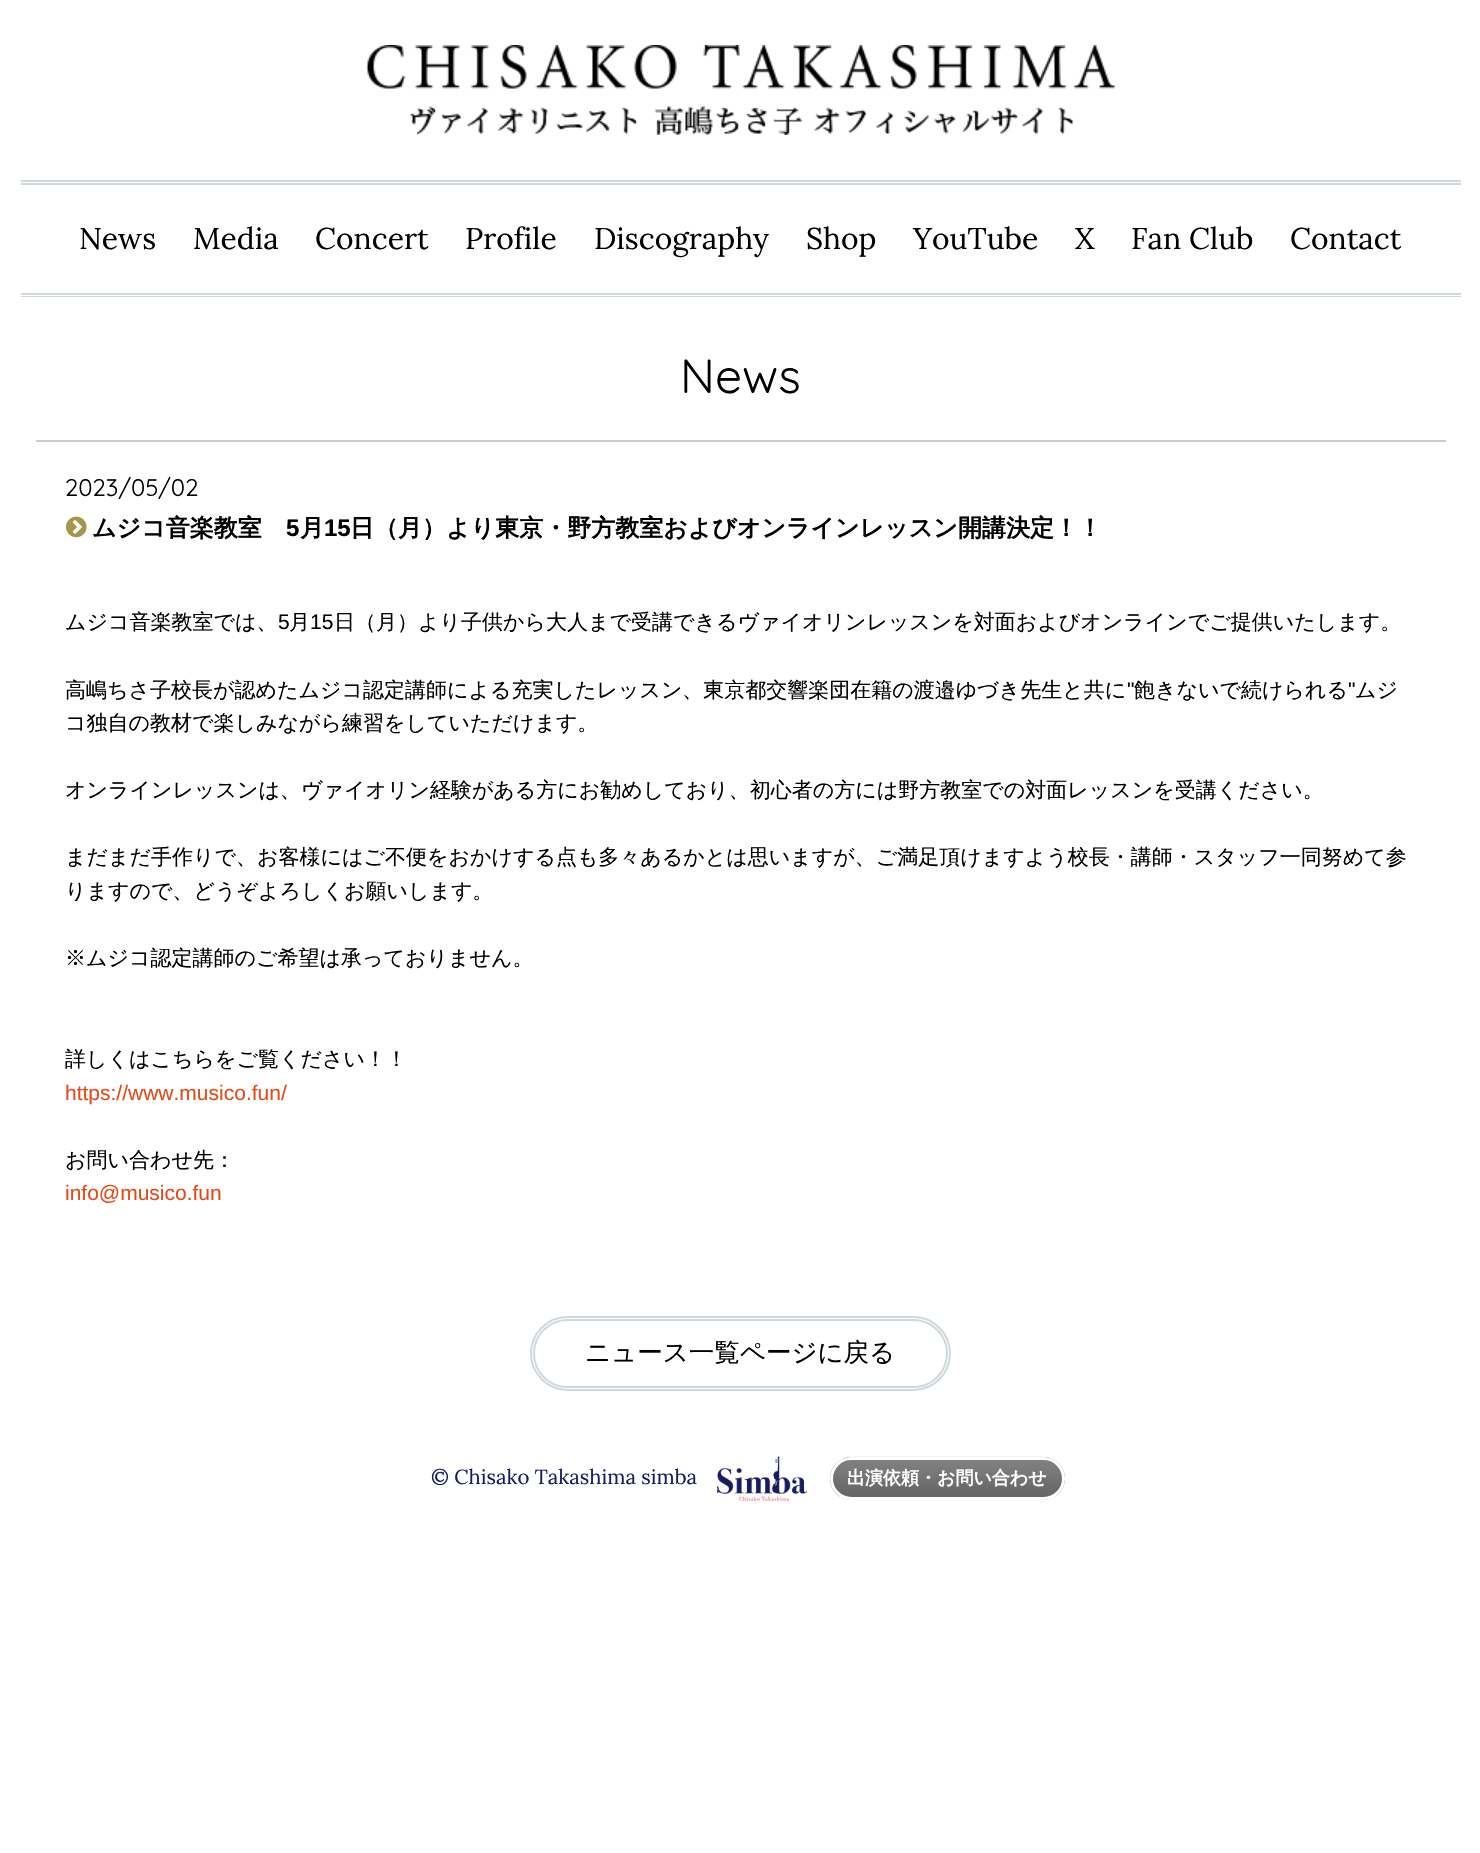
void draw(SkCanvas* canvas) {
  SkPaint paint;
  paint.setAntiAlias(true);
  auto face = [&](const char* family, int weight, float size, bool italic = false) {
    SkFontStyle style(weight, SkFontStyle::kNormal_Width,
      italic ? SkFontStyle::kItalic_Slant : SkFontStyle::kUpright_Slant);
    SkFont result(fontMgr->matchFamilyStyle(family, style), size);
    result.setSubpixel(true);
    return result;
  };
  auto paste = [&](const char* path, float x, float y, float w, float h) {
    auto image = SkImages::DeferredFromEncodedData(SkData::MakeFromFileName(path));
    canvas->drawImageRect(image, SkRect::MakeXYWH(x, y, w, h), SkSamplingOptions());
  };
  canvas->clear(0xffffffff);
  {
    const struct { float x, y, w, h; SkColor color; } items[] = {
      {21, 293, 1440, 2, 0xffcfd8dc},
      {21, 296, 1440, 1, 0xffcfd8dc},
      {21, 180, 1440, 2, 0xffcfd8dc},
      {21, 183, 1440, 2, 0xffcfd8dc},
    };
    for (auto [x, y, w, h, color] : items) {
      paint.setColor(color);
      canvas->drawRect(SkRect::MakeXYWH(x, y, w, h), paint);
    }
  }
  paste("img/1.png", 366, 45, 750, 90);
  paint.setColor(0xffcccccc);
  canvas->drawRect(SkRect::MakeXYWH(36, 440, 1410, 2), paint);
  paste("img/2.png", 66, 516, 21, 22);
  paint.setStroke(true);
  paint.setStrokeWidth(2);
  paint.setColor(0xffcfd8dc);
  canvas->drawRoundRect(SkRect::MakeXYWH(531, 1317, 419, 73), 36.5f, 36.5f, paint);
  canvas->drawRoundRect(SkRect::MakeXYWH(534, 1320, 413, 67), 33.5f, 33.5f, paint);
  paste("img/3.png", 717, 1456, 90, 45);
  paint.setStroke(false);
  paint.setColor(0xff808080);
  canvas->drawRoundRect(SkRect::MakeXYWH(830, 1457, 235, 43), 21.5f, 21.5f, paint);
  paste("img/4.png", 829, 1456, 236, 41);
  paint.setStroke(true);
  paint.setStrokeWidth(3);
  paint.setColor(0xffffffff);
  canvas->drawRoundRect(SkRect::MakeXYWH(831.5f, 1458.5f, 232, 40), 20, 20, paint);
  auto f0 = face("Lora", 400, 30);
  paint.setStroke(false);
  paint.setColor(0xff000000);
  {
    const struct { const char* s; float x, y; } items[] = {
      {"News", 79, 249},
      {"Media", 193, 249},
      {"Concert", 315, 249},
      {"Profile", 465, 249},
      {"Discography", 594, 249},
      {"Shop", 806, 249},
      {"YouTube", 913, 249},
      {"X", 1075, 249},
      {"Fan Club", 1131, 249},
      {"Contact", 1290, 249},
    };
    for (auto [s, x, y] : items) {
      canvas->drawString(s, x, y, f0, paint);
    }
  }
  auto f1 = face("Quicksand", 300, 48);
  canvas->drawString("News", 680, 393, f1, paint);
  auto f2 = face("Quicksand", 300, 24);
  canvas->drawString("2023/05/02", 65, 496, f2, paint);
  auto f3 = face("WenQuanYi Zen Hei", 700, 24);
  canvas->drawString("ムジコ音楽教室", 92, 536, f3, paint);
  auto f4 = face("Liberation Sans", 700, 24);
  canvas->drawString("5", 286, 536, f4, paint);
  canvas->drawString("月", 300, 536, f3, paint);
  canvas->drawString("15", 324, 536, f4, paint);
  canvas->drawString("日（月）より東京・野方教室およびオンラインレッスン開講決定！！", 350, 536, f3, paint);
  auto f5 = face("WenQuanYi Zen Hei", 500, 21);
  canvas->drawString("ムジコ音楽教室では、", 65, 629, f5, paint);
  auto f6 = face("Liberation Sans", 400, 21);
  canvas->drawString("5", 278, 629, f6, paint);
  canvas->drawString("月", 289, 629, f5, paint);
  canvas->drawString("15", 310, 629, f6, paint);
  canvas->drawString("日（月）より子供から大人まで受講できるヴァイオリンレッスンを対面およびオンラインでご提供いたします。", 334, 629, f5, paint);
  canvas->drawString("高嶋ちさ子校長が認めたムジコ認定講師による充実したレッスン、東京都交響楽団在籍の渡邉ゆづき先生と共に", 65, 697, f5, paint);
  canvas->drawString("\"", 1127, 697, f6, paint);
  canvas->drawString("飽きないで続けられる", 1134, 697, f5, paint);
  canvas->drawString("\"", 1348, 697, f6, paint);
  {
    const struct { const char* s; float x, y; } items[] = {
      {"ムジ", 1355, 697},
      {"コ独自の教材で楽しみながら練習をしていただけます。", 65, 730},
      {"オンラインレッスンは、ヴァイオリン経験がある方にお勧めしており、初心者の方には野方教室での対面レッスンを受講ください。", 65, 797},
      {"まだまだ手作りで、お客様にはご不便をおかけする点も多々あるかとは思いますが、ご満足頂けますよう校長・講師・スタッフ一同努めて参", 65, 864},
      {"りますので、どうぞよろしくお願いします。", 65, 898},
      {"※ムジコ認定講師のご希望は承っておりません。", 65, 965},
      {"詳しくはこちらをご覧ください！！", 65, 1066},
    };
    for (auto [s, x, y] : items) {
      canvas->drawString(s, x, y, f5, paint);
    }
  }
  paint.setColor(0xffe64a19);
  canvas->drawString("https://www.musico.fun/", 65, 1100, f6, paint);
  paint.setColor(0xff000000);
  canvas->drawString("お問い合わせ先：", 65, 1167, f5, paint);
  paint.setColor(0xffe64a19);
  canvas->drawString("info@musico.fun", 65, 1200, f6, paint);
  auto f7 = face("WenQuanYi Zen Hei", 500, 25.5f);
  paint.setColor(0xff000000);
  canvas->drawString("ニュース一覧ページに戻る", 585, 1361, f7, paint);
  auto f8 = face("Lora", 400, 20.4f);
  paint.setColor(0xff171c61);
  canvas->drawString("© Chisako Takashima simba", 431, 1484, f8, paint);
  auto f9 = face("WenQuanYi Zen Hei", 700, 18);
  paint.setColor(0xffffffff);
  canvas->drawString("出演依頼・お問い合わせ", 847, 1484, f9, paint);
}
